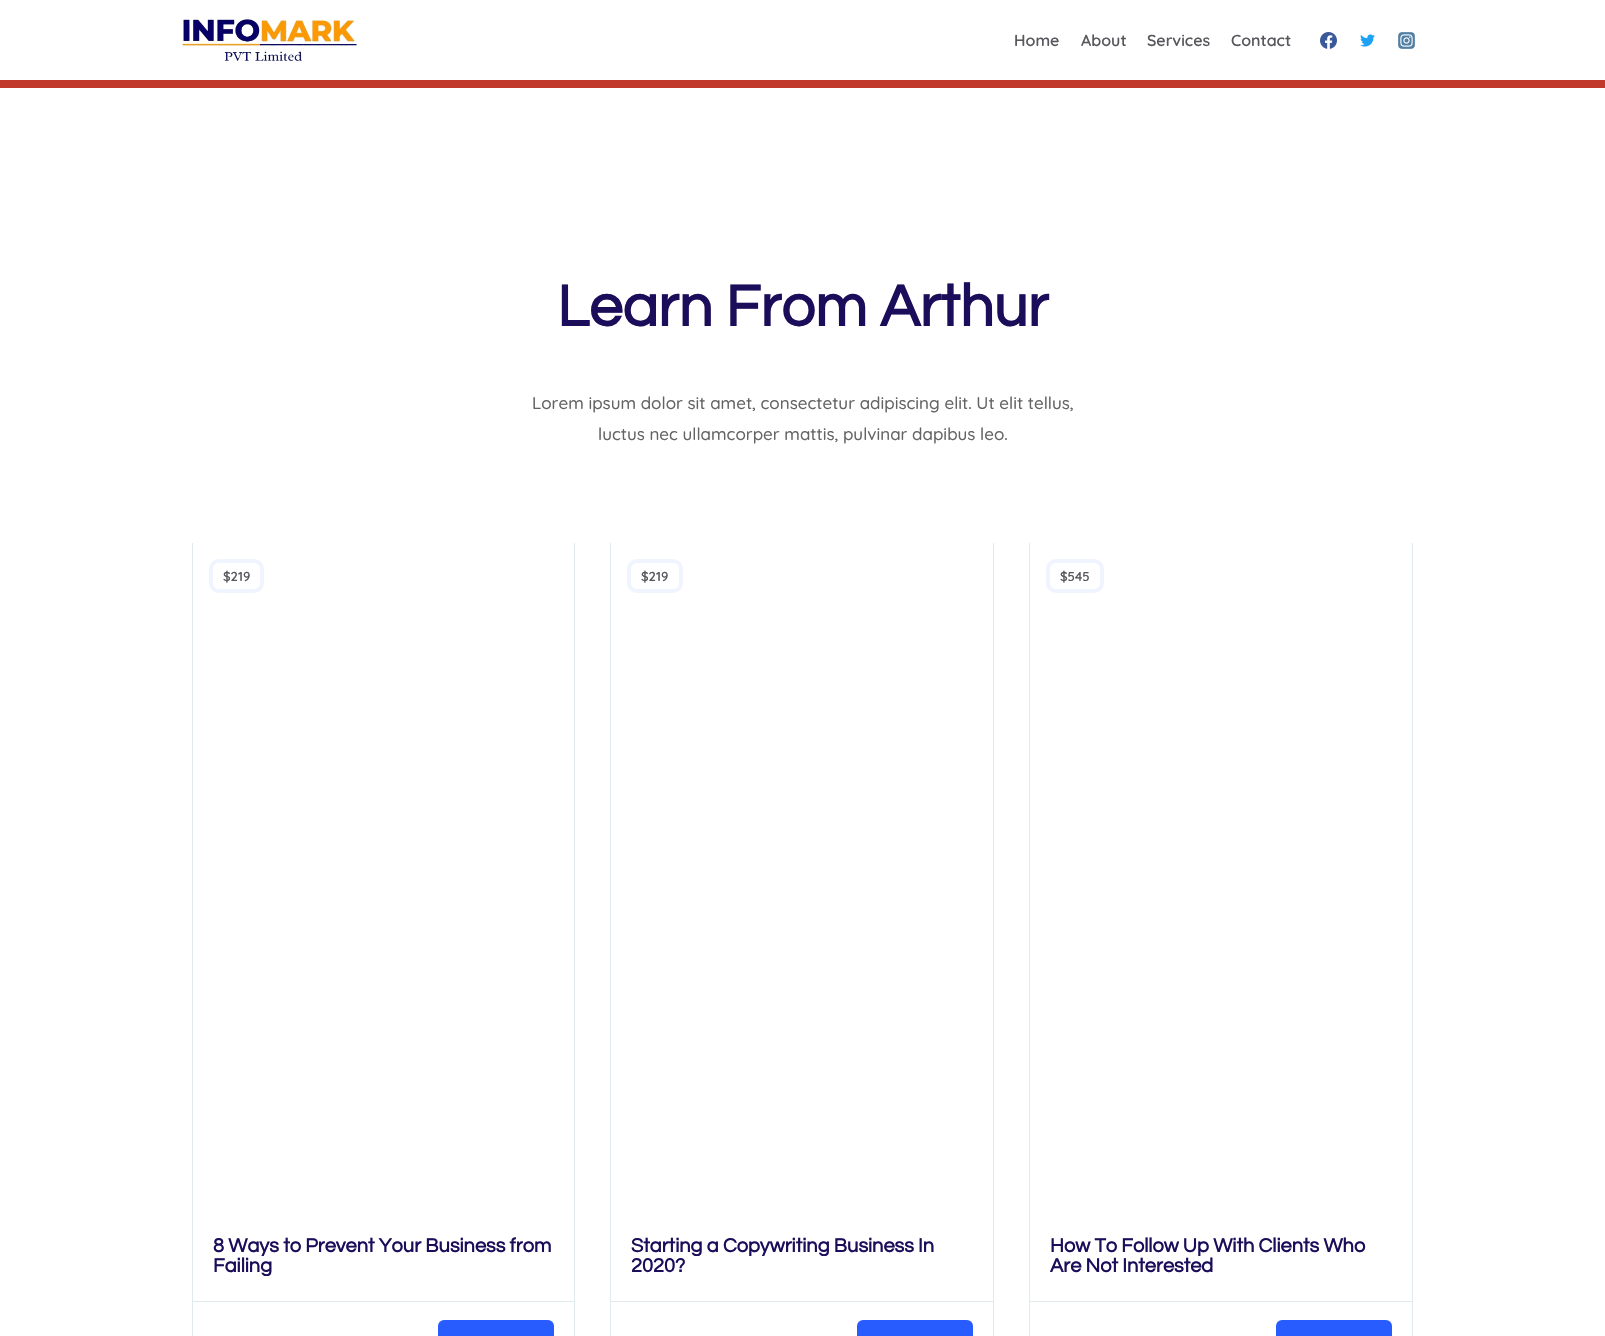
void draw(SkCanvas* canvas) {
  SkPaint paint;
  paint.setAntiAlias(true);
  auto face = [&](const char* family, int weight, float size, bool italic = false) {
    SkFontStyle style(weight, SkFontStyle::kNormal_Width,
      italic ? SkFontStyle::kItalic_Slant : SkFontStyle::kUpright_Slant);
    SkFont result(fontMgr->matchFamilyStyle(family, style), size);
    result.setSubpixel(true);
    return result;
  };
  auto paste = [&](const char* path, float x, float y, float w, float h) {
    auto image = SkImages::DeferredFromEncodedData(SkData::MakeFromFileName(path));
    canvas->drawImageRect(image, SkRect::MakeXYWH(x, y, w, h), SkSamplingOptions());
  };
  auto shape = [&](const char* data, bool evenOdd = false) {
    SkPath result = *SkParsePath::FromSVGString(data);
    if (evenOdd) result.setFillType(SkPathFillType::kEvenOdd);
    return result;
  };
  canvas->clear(0xffffffff);
  paint.setColor(0xffc0392b);
  canvas->drawRect(SkRect::MakeXYWH(0, 80, 1605, 8), paint);
  paste("img/1.png", 182, 19, 175, 42);
  paste("img/2.png", 1320, 32, 17, 17);
  paste("img/3.png", 1360, 34, 15, 13);
  paste("img/4.png", 1398, 32, 17, 17);
  {
    const struct { float x, y, w, h; SkColor color; } items[] = {
      {574, 543, 1, 759, 0xffe1ebee},
      {192, 1301, 383, 1, 0xffe1ebee},
      {192, 543, 1, 759, 0xffe1ebee},
    };
    for (auto [x, y, w, h, color] : items) {
      paint.setColor(color);
      canvas->drawRect(SkRect::MakeXYWH(x, y, w, h), paint);
    }
  }
  paint.setStroke(true);
  paint.setStrokeWidth(4);
  paint.setColor(0xfff0f4ff);
  canvas->drawRoundRect(SkRect::MakeXYWH(211, 561, 51, 30), 8, 8, paint);
  paint.setStroke(false);
  paint.setColor(0xffffffff);
  canvas->drawRoundRect(SkRect::MakeXYWH(213, 563, 47, 26), 6, 6, paint);
  paint.setColor(0xffe1ebee);
  canvas->drawPath(shape("M192 1302H575V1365C575 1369 571 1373 567 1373H200C196 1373 192 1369 192 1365ZM193 1302H574V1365C574 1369 571 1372 567 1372H200C196 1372 193 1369 193 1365Z", true), paint);
  paint.setColor(0xff295cff);
  canvas->drawRoundRect(SkRect::MakeXYWH(438, 1320, 116, 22), 6, 6, paint);
  {
    const struct { float x, y, w, h; SkColor color; } items[] = {
      {993, 543, 1, 759, 0xffe1ebee},
      {610, 1301, 384, 1, 0xffe1ebee},
      {610, 543, 1, 759, 0xffe1ebee},
    };
    for (auto [x, y, w, h, color] : items) {
      paint.setColor(color);
      canvas->drawRect(SkRect::MakeXYWH(x, y, w, h), paint);
    }
  }
  paint.setStroke(true);
  paint.setColor(0xfff0f4ff);
  canvas->drawRoundRect(SkRect::MakeXYWH(629, 561, 52, 30), 8, 8, paint);
  paint.setStroke(false);
  paint.setColor(0xffffffff);
  canvas->drawRoundRect(SkRect::MakeXYWH(631, 563, 48, 26), 6, 6, paint);
  paint.setColor(0xffe1ebee);
  canvas->drawPath(shape("M610 1302H994V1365C994 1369 990 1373 986 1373H618C614 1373 610 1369 610 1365ZM611 1302H993V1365C993 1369 990 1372 986 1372H618C614 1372 611 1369 611 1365Z", true), paint);
  paint.setColor(0xff295cff);
  canvas->drawRoundRect(SkRect::MakeXYWH(857, 1320, 116, 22), 6, 6, paint);
  {
    const struct { float x, y, w, h; SkColor color; } items[] = {
      {1412, 543, 1, 759, 0xffe1ebee},
      {1029, 1301, 384, 1, 0xffe1ebee},
      {1029, 543, 1, 759, 0xffe1ebee},
    };
    for (auto [x, y, w, h, color] : items) {
      paint.setColor(color);
      canvas->drawRect(SkRect::MakeXYWH(x, y, w, h), paint);
    }
  }
  paint.setStroke(true);
  paint.setColor(0xfff0f4ff);
  canvas->drawRoundRect(SkRect::MakeXYWH(1048, 561, 54, 30), 8, 8, paint);
  paint.setStroke(false);
  paint.setColor(0xffffffff);
  canvas->drawRoundRect(SkRect::MakeXYWH(1050, 563, 50, 26), 6, 6, paint);
  paint.setColor(0xffe1ebee);
  canvas->drawPath(shape("M1029 1302H1413V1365C1413 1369 1409 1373 1405 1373H1037C1033 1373 1029 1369 1029 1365ZM1030 1302H1412V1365C1412 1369 1409 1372 1405 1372H1037C1033 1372 1030 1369 1030 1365Z", true), paint);
  paint.setColor(0xff295cff);
  canvas->drawRoundRect(SkRect::MakeXYWH(1276, 1320, 116, 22), 6, 6, paint);
  auto f0 = face("Quicksand", 600, 16);
  paint.setColor(0xff57575d);
  {
    const struct { const char* s; float x, y; } items[] = {
      {"Home", 1014, 46},
      {"About", 1081, 46},
      {"Services", 1147, 46},
      {"Contact", 1231, 46},
    };
    for (auto [s, x, y] : items) {
      canvas->drawString(s, x, y, f0, paint);
    }
  }
  auto f1 = face("Questrial", 700, 60);
  paint.setColor(0xff1c0d5a);
  canvas->drawString("Learn From Arthur", 557, 326, f1, paint);
  auto f2 = face("Quicksand", 500, 17);
  paint.setColor(0xff636363);
  canvas->drawString("Lorem ipsum dolor sit amet, consectetur adipiscing elit. Ut elit tellus,", 532, 409, f2, paint);
  canvas->drawString("luctus nec ullamcorper mattis, pulvinar dapibus leo.", 598, 440, f2, paint);
  auto f3 = face("Quicksand", 600, 13);
  paint.setColor(0xff57575d);
  canvas->drawString("$219", 223, 581, f3, paint);
  auto f4 = face("Questrial", 700, 20);
  paint.setColor(0xff1c0d5a);
  canvas->drawString("8 Ways to Prevent Your Business from", 213, 1252, f4, paint);
  canvas->drawString("Failing", 213, 1272, f4, paint);
  paint.setColor(0xff57575d);
  canvas->drawString("$219", 641, 581, f3, paint);
  paint.setColor(0xff1c0d5a);
  canvas->drawString("Starting a Copywriting Business In", 631, 1252, f4, paint);
  canvas->drawString("2020?", 631, 1272, f4, paint);
  paint.setColor(0xff57575d);
  canvas->drawString("$545", 1060, 581, f3, paint);
  paint.setColor(0xff1c0d5a);
  canvas->drawString("How To Follow Up With Clients Who", 1050, 1252, f4, paint);
  canvas->drawString("Are Not Interested", 1050, 1272, f4, paint);
}
